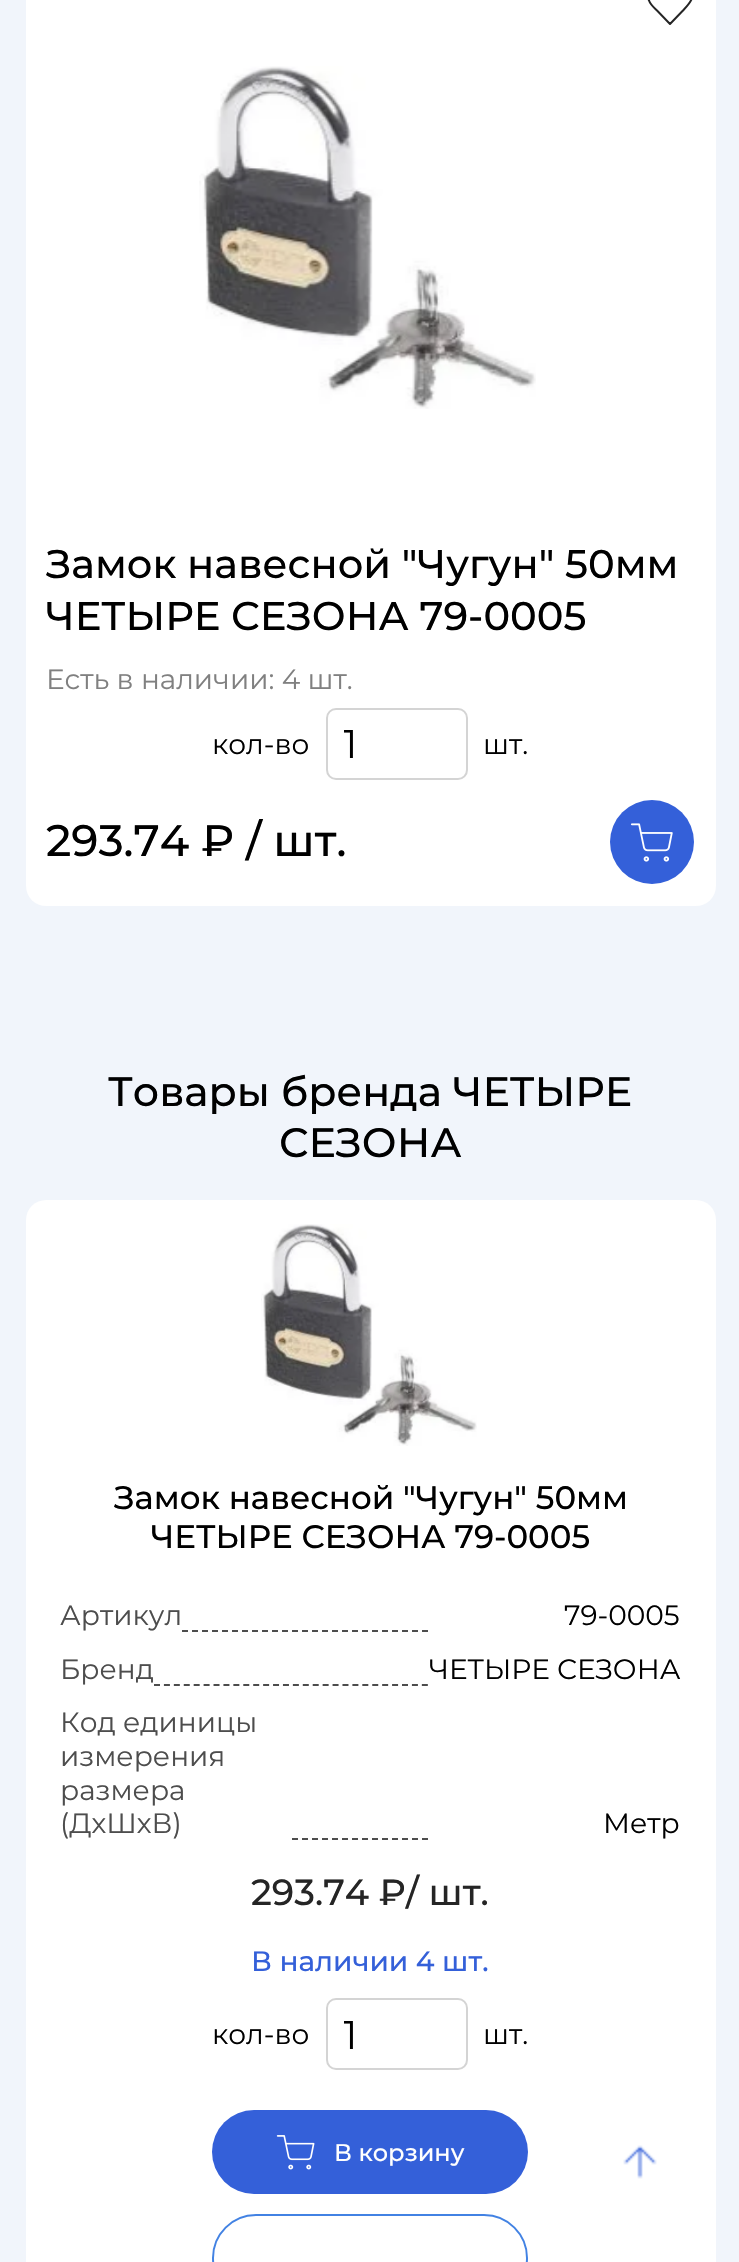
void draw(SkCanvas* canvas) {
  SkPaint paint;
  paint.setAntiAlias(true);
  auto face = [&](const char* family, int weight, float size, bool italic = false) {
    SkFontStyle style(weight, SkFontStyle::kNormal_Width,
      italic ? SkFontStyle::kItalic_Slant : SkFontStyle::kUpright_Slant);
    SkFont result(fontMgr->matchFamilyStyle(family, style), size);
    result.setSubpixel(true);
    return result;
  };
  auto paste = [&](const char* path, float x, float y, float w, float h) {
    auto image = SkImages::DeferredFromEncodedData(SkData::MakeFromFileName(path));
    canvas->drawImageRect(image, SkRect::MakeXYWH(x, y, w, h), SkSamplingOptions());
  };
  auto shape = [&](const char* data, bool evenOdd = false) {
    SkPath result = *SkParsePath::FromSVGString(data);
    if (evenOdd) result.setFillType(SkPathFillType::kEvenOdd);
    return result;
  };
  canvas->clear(0xfff1f5fb);
  paint.setColor(0xffffffff);
  canvas->drawRoundRect(SkRect::MakeXYWH(26, -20, 690, 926), 20, 20, paint);
  paint.setStroke(true);
  paint.setStrokeWidth(2);
  paint.setStrokeCap(SkPaint::kRound_Cap);
  paint.setStrokeJoin(SkPaint::kRound_Join);
  paint.setColor(0xff252525);
  canvas->drawPath(shape("M688.5-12.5C682.5-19 675.5-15.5 670-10C668-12.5 666-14.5 663-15.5C653.5-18.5 645.5-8 649 .5C650.5 5 654.5 8 657.5 11L670 24L682.5 11C688.5 4.5 697.5-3.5 688.5-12.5Z"), paint);
  paste("img/1.png", 199, 66, 337, 343);
  paint.setStrokeCap(SkPaint::kButt_Cap);
  paint.setStrokeJoin(SkPaint::kMiter_Join);
  paint.setColor(0xffd4d4d4);
  canvas->drawRoundRect(SkRect::MakeXYWH(327, 709, 140, 70), 9, 9, paint);
  paint.setStroke(false);
  paint.setColor(0xff3460d9);
  canvas->drawCircle(652, 842, 42, paint);
  paste("img/2.png", 630, 823, 43, 39);
  paint.setColor(0xffffffff);
  canvas->drawRoundRect(SkRect::MakeXYWH(26, 1200, 690, 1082), 20, 20, paint);
  paste("img/3.png", 261, 1224, 216, 222);
  paint.setStroke(true);
  paint.setColor(0xff4d4d4d);
  paint.setPathEffect(SkDashPathEffect::Make({{6, 4}}, 0));
  canvas->drawPath(shape("M182 1631H428"), paint);
  paint.setPathEffect(nullptr);
  paint.setPathEffect(SkDashPathEffect::Make({{6, 3.92f}}, 0));
  canvas->drawPath(shape("M154 1685H428"), paint);
  paint.setPathEffect(nullptr);
  paint.setPathEffect(SkDashPathEffect::Make({{6, 4}}, 0));
  canvas->drawPath(shape("M292 1839H428"), paint);
  paint.setPathEffect(nullptr);
  paint.setColor(0xffd4d4d4);
  canvas->drawRoundRect(SkRect::MakeXYWH(327, 1999, 140, 70), 9, 9, paint);
  paint.setStroke(false);
  paint.setColor(0xff3460d9);
  canvas->drawRoundRect(SkRect::MakeXYWH(212, 2110, 316, 84), 42, 42, paint);
  paste("img/4.png", 276, 2135, 39, 35);
  paint.setStroke(true);
  paint.setColor(0xff4282e3);
  canvas->drawRoundRect(SkRect::MakeXYWH(213, 2215, 314, 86), 43, 43, paint);
  paste("img/5.png", 623, 2145, 34, 34);
  auto f0 = face("Montserrat", 500, 40);
  paint.setStroke(false);
  paint.setColor(0xff000000);
  canvas->drawString("Замок навесной \"Чугун\" 50мм", 46, 578, f0, paint);
  canvas->drawString("ЧЕТЫРЕ СЕЗОНА 79-0005", 46, 630, f0, paint);
  auto f1 = face("Montserrat", 400, 28);
  paint.setColor(0xff808080);
  canvas->drawString("Есть в наличии: 4 шт.", 46, 689, f1, paint);
  paint.setColor(0xff000000);
  canvas->drawString("кол-во", 212, 754, f1, paint);
  canvas->save();
  canvas->clipRect(SkRect::MakeXYWH(344, 720, 76, 48));
  auto f2 = face("Montserrat", 400, 40);
  canvas->drawString("1", 343, 758, f2, paint);
  canvas->restore();
  canvas->drawString("шт.", 483, 754, f1, paint);
  auto f3 = face("Montserrat", 500, 44);
  canvas->drawString("293.74 ₽ / шт.", 46, 856, f3, paint);
  auto f4 = face("Montserrat", 500, 41.1f);
  canvas->drawString("Товары бренда ЧЕТЫРЕ", 108, 1106, f4, paint);
  canvas->drawString("СЕЗОНА", 279, 1157, f4, paint);
  auto f5 = face("Montserrat", 500, 32.5f);
  canvas->drawString("Замок навесной \"Чугун\" 50мм", 114, 1509, f5, paint);
  canvas->drawString("ЧЕТЫРЕ СЕЗОНА 79-0005", 151, 1548, f5, paint);
  paint.setColor(0xff4d4d4d);
  canvas->drawString("Артикул", 60, 1625, f1, paint);
  paint.setColor(0xff000000);
  canvas->drawString("79-0005", 564, 1625, f1, paint);
  paint.setColor(0xff4d4d4d);
  canvas->drawString("Бренд", 60, 1679, f1, paint);
  paint.setColor(0xff000000);
  canvas->drawString("ЧЕТЫРЕ СЕЗОНА", 429, 1679, f1, paint);
  paint.setColor(0xff4d4d4d);
  {
    const struct { const char* s; float x, y; } items[] = {
      {"Код единицы", 60, 1732},
      {"измерения", 60, 1766},
      {"размера", 60, 1800},
      {"(ДхШхВ)", 60, 1833},
    };
    for (auto [s, x, y] : items) {
      canvas->drawString(s, x, y, f1, paint);
    }
  }
  paint.setColor(0xff000000);
  canvas->drawString("Метр", 603, 1833, f1, paint);
  auto f6 = face("Montserrat", 500, 36.25f);
  paint.setColor(0xff252525);
  canvas->drawString("293.74 ₽/ шт.", 251, 1905, f6, paint);
  auto f7 = face("Montserrat", 500, 28);
  paint.setColor(0xff3460d9);
  canvas->drawString("В наличии 4 шт.", 251, 1971, f7, paint);
  paint.setColor(0xff000000);
  canvas->drawString("кол-во", 212, 2044, f1, paint);
  canvas->save();
  canvas->clipRect(SkRect::MakeXYWH(344, 2010, 76, 48));
  canvas->drawString("1", 343, 2049, f2, paint);
  canvas->restore();
  canvas->drawString("шт.", 483, 2044, f1, paint);
  auto f8 = face("Montserrat", 500, 24);
  paint.setColor(0xffffffff);
  canvas->drawString("В корзину", 334, 2161, f8, paint);
}
